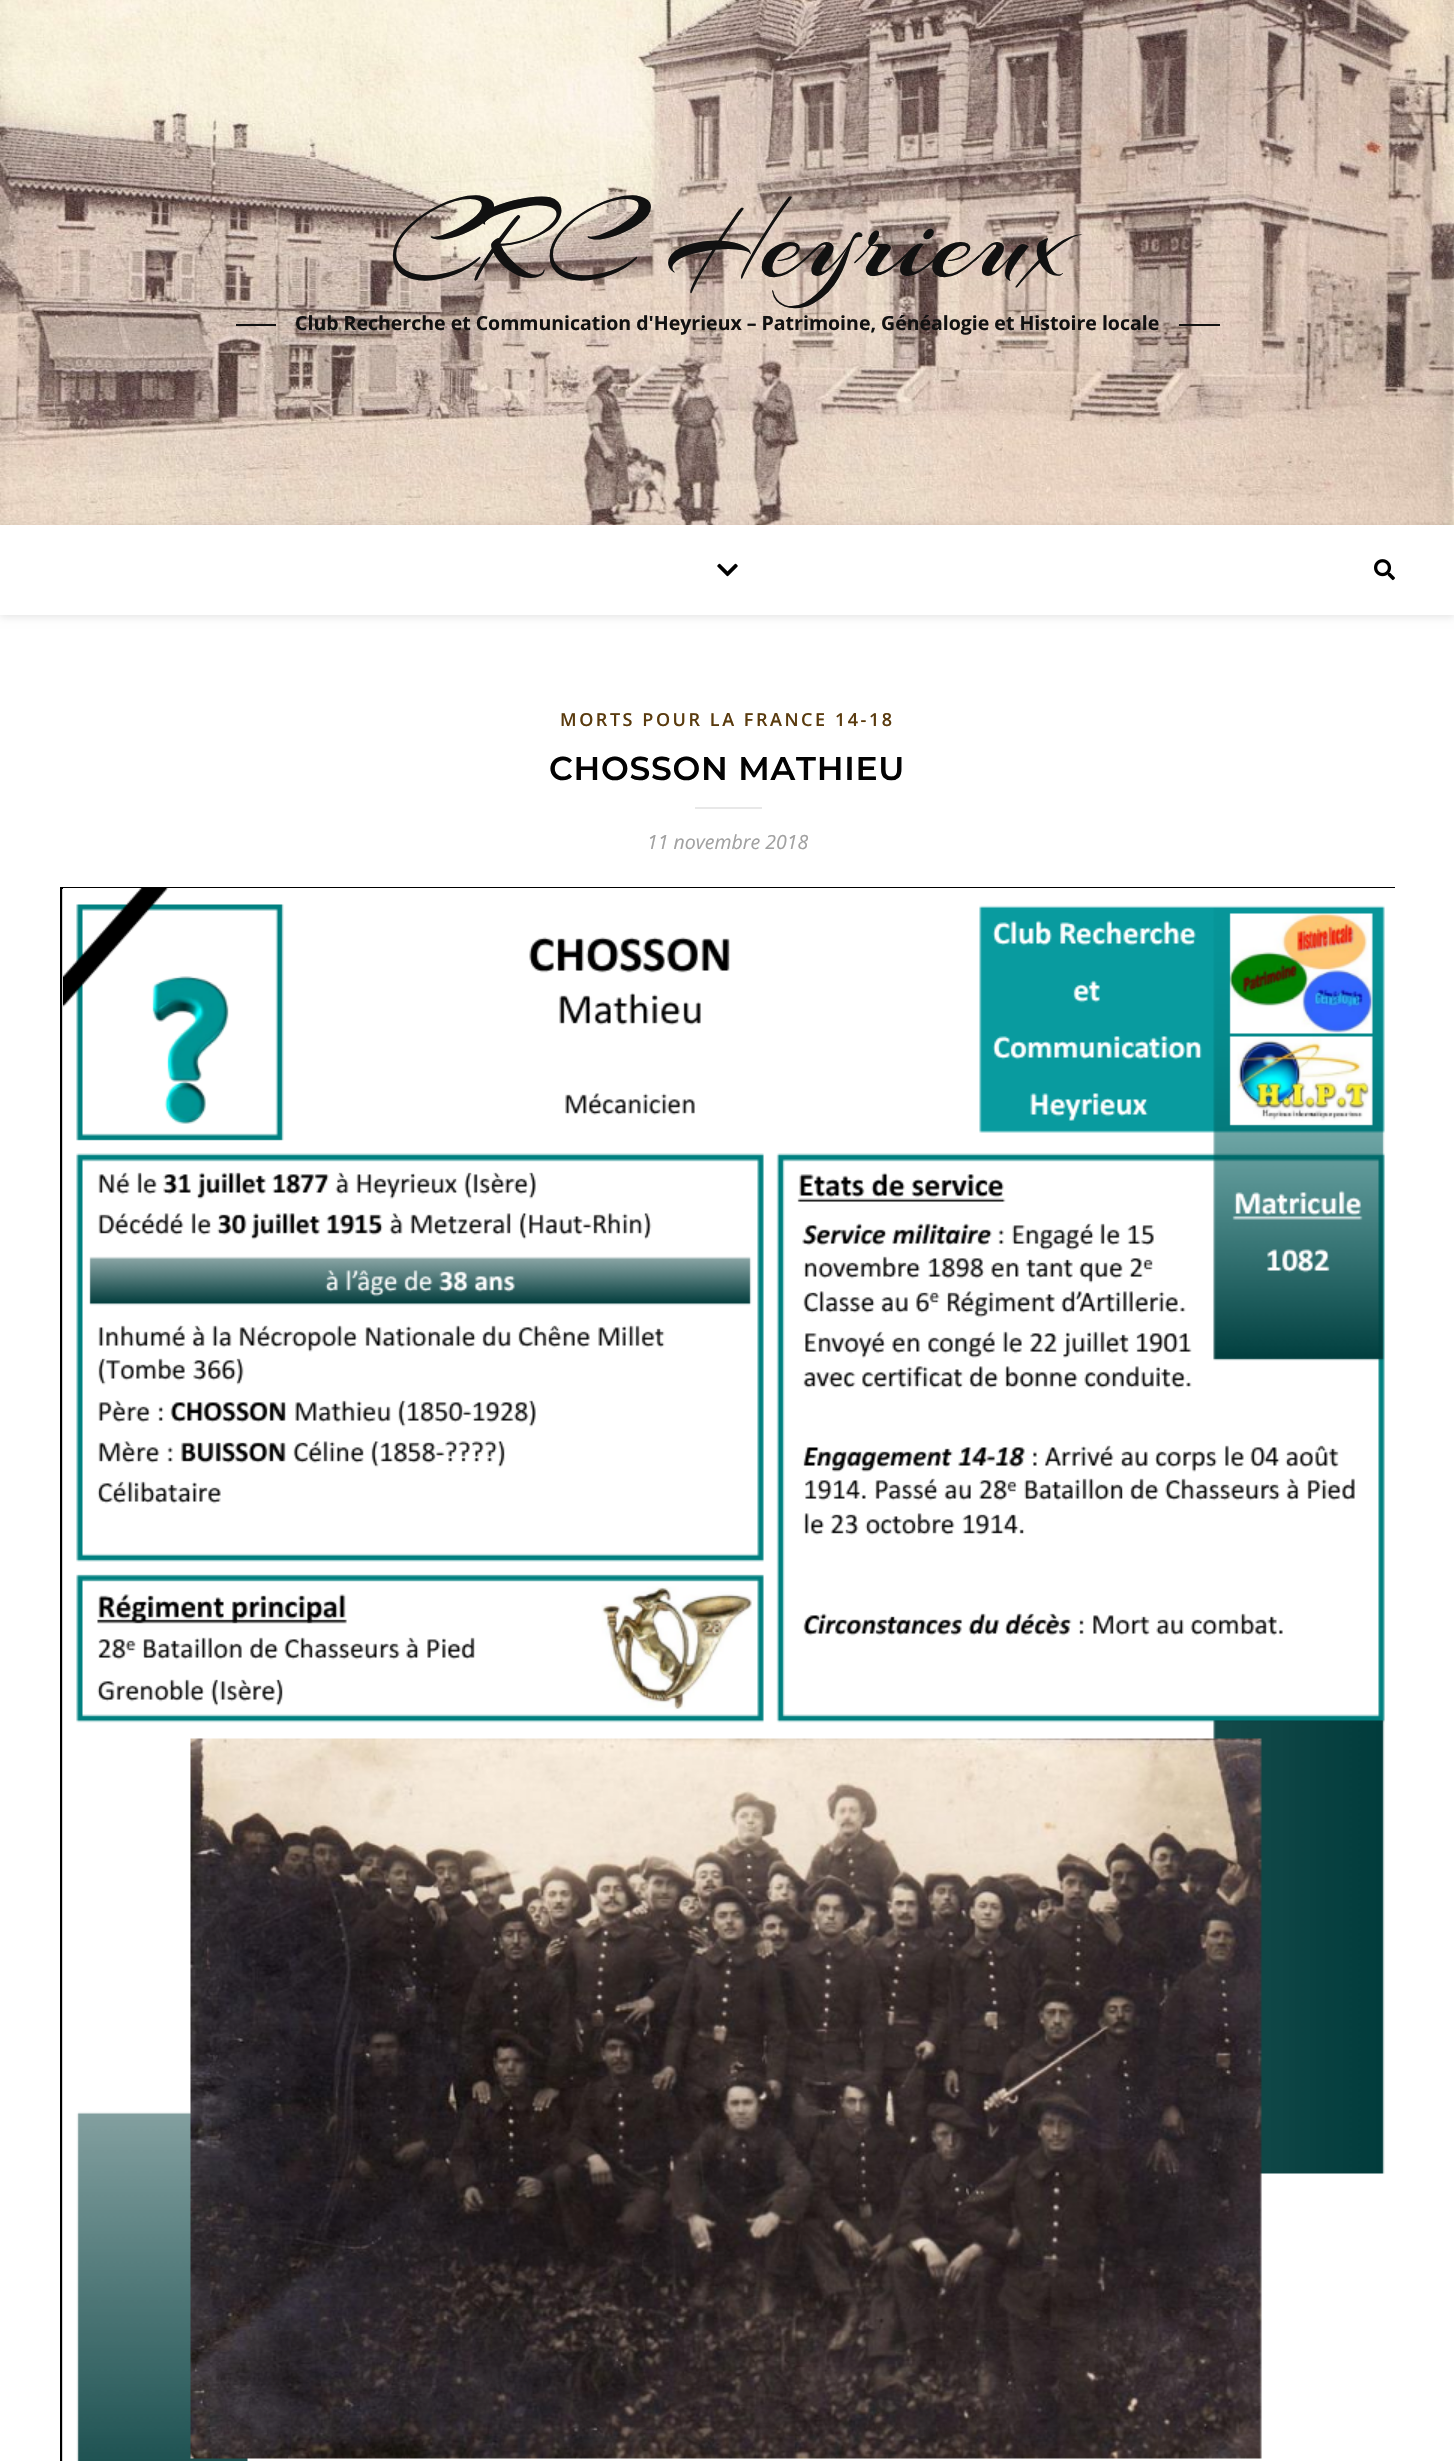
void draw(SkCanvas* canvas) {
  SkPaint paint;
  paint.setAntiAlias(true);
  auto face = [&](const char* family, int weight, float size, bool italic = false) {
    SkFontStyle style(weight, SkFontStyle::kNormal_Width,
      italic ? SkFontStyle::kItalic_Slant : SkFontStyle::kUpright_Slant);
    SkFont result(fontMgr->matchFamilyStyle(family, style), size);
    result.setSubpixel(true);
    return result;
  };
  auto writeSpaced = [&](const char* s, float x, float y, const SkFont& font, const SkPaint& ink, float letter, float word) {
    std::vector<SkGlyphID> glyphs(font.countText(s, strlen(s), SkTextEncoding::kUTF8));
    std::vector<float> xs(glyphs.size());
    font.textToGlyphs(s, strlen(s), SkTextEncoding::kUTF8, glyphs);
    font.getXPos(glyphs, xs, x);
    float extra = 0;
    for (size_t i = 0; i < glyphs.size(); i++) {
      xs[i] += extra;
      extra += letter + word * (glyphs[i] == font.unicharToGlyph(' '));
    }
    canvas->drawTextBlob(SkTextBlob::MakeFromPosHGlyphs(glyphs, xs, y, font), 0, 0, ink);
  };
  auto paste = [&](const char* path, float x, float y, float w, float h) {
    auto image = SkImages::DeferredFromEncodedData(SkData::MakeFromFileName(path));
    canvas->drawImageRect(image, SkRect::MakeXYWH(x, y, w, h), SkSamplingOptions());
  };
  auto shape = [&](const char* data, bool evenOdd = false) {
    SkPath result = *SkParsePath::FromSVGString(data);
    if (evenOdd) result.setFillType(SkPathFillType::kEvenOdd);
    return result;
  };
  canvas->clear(0xffffffff);
  paste("img/1.png", 0, 0, 1454, 525);
  paint.setColor(0xff111111);
  canvas->drawRect(SkRect::MakeXYWH(236, 324, 40, 2), paint);
  canvas->drawRect(SkRect::MakeXYWH(1179, 324, 41, 2), paint);
  canvas->save();
  canvas->clipPath(shape("M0 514H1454V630H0ZM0 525H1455V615H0Z", true), true);
  paint.setColor(0x1a000000);
  paint.setMaskFilter(SkMaskFilter::MakeBlur(kNormal_SkBlurStyle, 4));
  canvas->drawRect(SkRect::MakeXYWH(0, 527, 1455, 90), paint);
  paint.setMaskFilter(nullptr);
  canvas->restore();
  paste("img/2.png", 717, 563, 21, 14);
  paste("img/3.png", 1374, 559, 21, 22);
  paint.setColor(0xffe8e8e8);
  canvas->drawRect(SkRect::MakeXYWH(695, 807, 67, 2), paint);
  paint.setColor(0xffd3d3d3);
  canvas->drawRect(SkRect::MakeXYWH(62, 889, 1, 1572), paint);
  canvas->save();
  canvas->clipRect(SkRect::MakeXYWH(60, 887, 1335, 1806));
  paint.setStroke(true);
  paint.setStrokeWidth(2);
  paint.setColor(0xff000000);
  canvas->drawRect(SkRect::MakeXYWH(61, 888, 1336, 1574), paint);
  canvas->restore();
  paint.setStroke(false);
  paint.setColor(0xffffffff);
  canvas->drawRect(SkRect::MakeXYWH(1385, 888, 10, 1), paint);
  paste("img/4.png", 63, 888, 1322, 1573);
  auto f0 = face("Arizonia", 400, 120);
  paint.setColor(0xff111111);
  canvas->drawString("CRC Heyrieux", 390, 276, f0, paint);
  auto f1 = face("Open Sans", 700, 19.5f);
  canvas->drawString("Club Recherche et Communication d'Heyrieux – Patrimoine, Généalogie et Histoire locale", 295, 330, f1, paint);
  auto f2 = face("Open Sans", 600, 18);
  paint.setColor(0xff5a3b0e);
  writeSpaced("MORTS POUR LA FRANCE 14-18", 560, 726, f2, paint, 2.55f, 0);
  auto f3 = face("Montserrat", 600, 33);
  paint.setColor(0xff030303);
  writeSpaced("CHOSSON MATHIEU", 549, 780, f3, paint, 0.75f, 0);
  auto f4 = face("Open Sans", 400, 19.5f, true);
  paint.setColor(0xffa1a1a1);
  canvas->drawString("11 novembre 2018", 647, 849, f4, paint);
}
